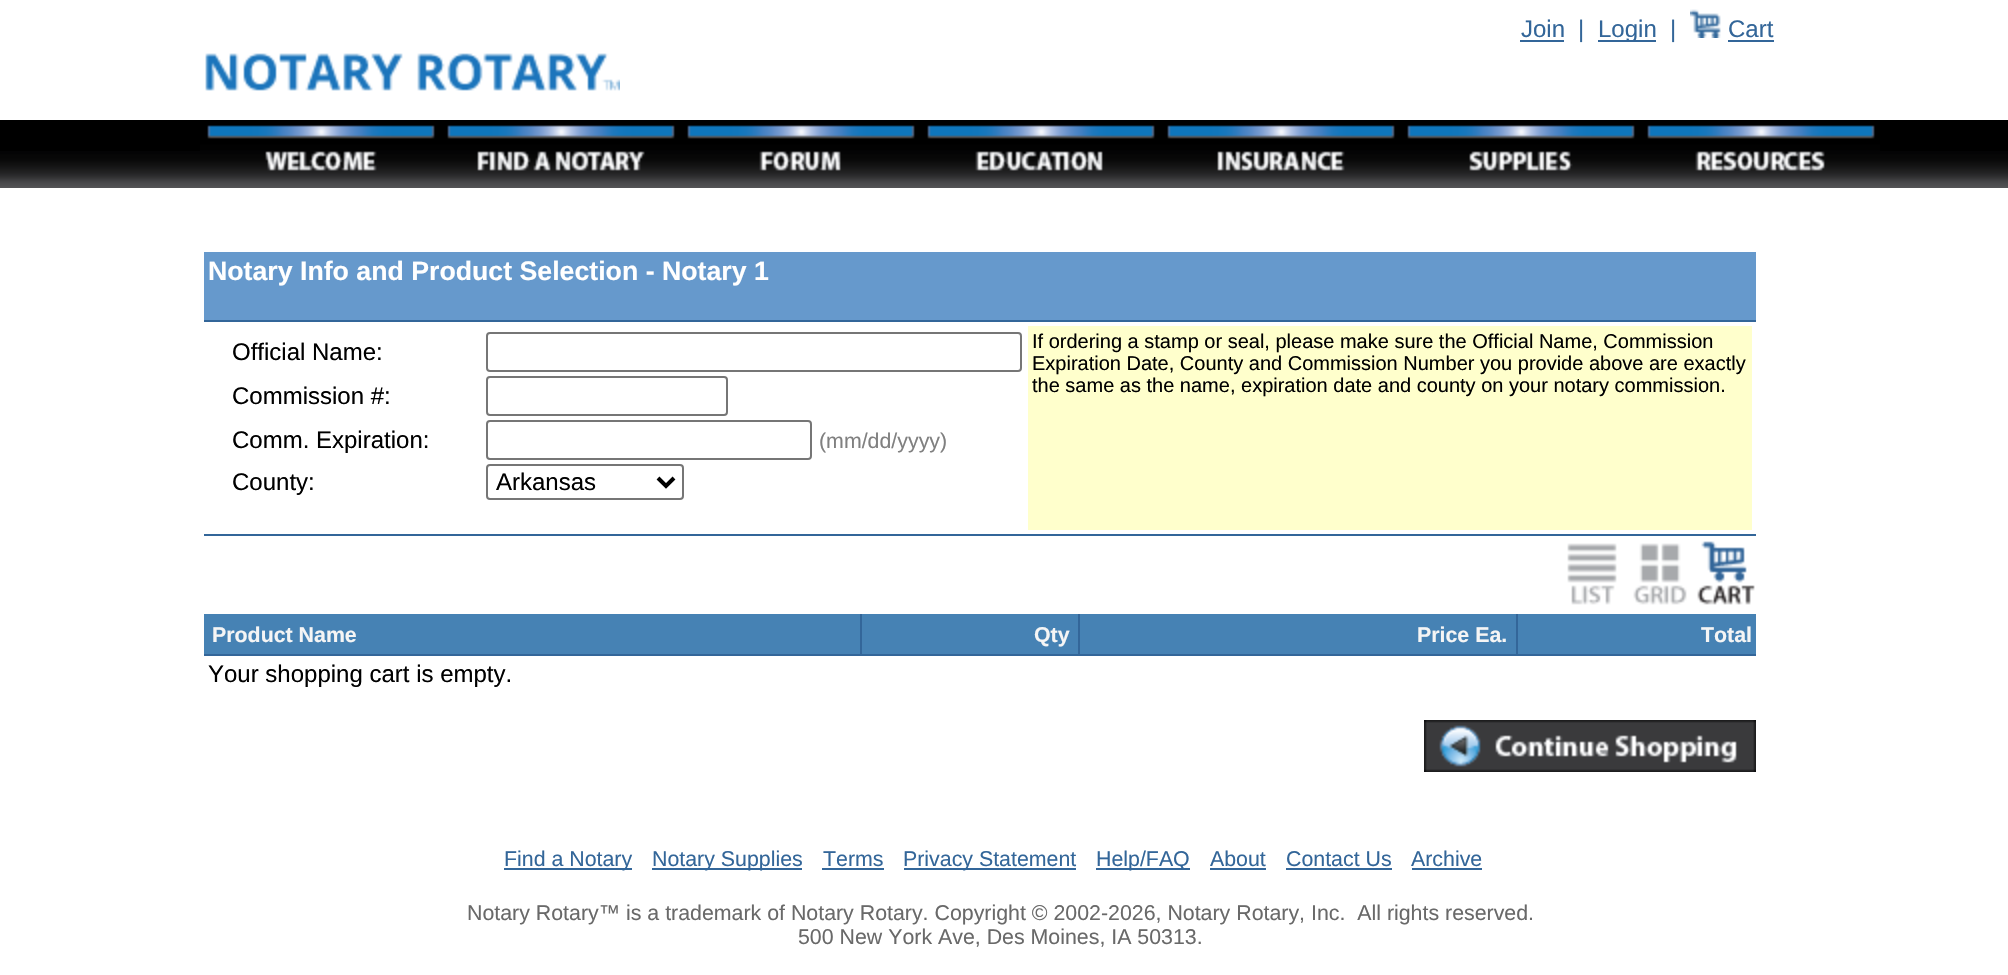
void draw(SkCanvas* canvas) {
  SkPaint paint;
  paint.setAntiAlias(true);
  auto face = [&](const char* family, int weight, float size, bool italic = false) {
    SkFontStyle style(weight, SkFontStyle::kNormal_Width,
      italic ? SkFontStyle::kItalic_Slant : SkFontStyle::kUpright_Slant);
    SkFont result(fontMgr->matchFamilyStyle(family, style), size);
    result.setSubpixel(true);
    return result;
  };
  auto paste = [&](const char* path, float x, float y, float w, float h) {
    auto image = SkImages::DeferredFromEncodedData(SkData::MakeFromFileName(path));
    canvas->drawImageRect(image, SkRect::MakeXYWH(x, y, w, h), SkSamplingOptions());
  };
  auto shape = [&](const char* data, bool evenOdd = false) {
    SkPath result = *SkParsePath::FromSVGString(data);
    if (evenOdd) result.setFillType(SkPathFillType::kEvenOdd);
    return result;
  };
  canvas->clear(0xffffffff);
  paint.setColor(0xff000000);
  canvas->drawRect(SkRect::MakeXYWH(0, 120, 200, 31), paint);
  paste("img/1.png", 0, 151, 200, 37);
  paint.setColor(0xff336699);
  canvas->drawRect(SkRect::MakeXYWH(1520, 40, 44, 2), paint);
  canvas->drawRect(SkRect::MakeXYWH(1598, 40, 58, 2), paint);
  paste("img/2.png", 1690, 9, 31, 29);
  canvas->drawRect(SkRect::MakeXYWH(1728, 40, 46, 2), paint);
  paste("img/3.png", 205, 53, 415, 38);
  paste("img/4.png", 200, 120, 240, 68);
  paste("img/5.png", 440, 120, 240, 68);
  paste("img/6.png", 680, 120, 240, 68);
  paste("img/7.png", 920, 120, 240, 68);
  paste("img/8.png", 1160, 120, 240, 68);
  paste("img/9.png", 1400, 120, 240, 68);
  paste("img/10.png", 1640, 120, 240, 68);
  paint.setColor(0xff000000);
  canvas->drawRect(SkRect::MakeXYWH(1880, 120, 128, 31), paint);
  paste("img/11.png", 1880, 151, 128, 37);
  {
    const struct { float x, y, w, h; SkColor color; } items[] = {
      {204, 252, 1552, 68, 0xff6699cc},
      {204, 320, 1552, 2, 0xff336699},
      {204, 534, 1552, 2, 0xff336699},
    };
    for (auto [x, y, w, h, color] : items) {
      paint.setColor(color);
      canvas->drawRect(SkRect::MakeXYWH(x, y, w, h), paint);
    }
  }
  paint.setStroke(true);
  paint.setStrokeWidth(2);
  paint.setColor(0xff767676);
  canvas->drawRoundRect(SkRect::MakeXYWH(487, 333, 534, 38), 3, 3, paint);
  canvas->drawRoundRect(SkRect::MakeXYWH(487, 377, 240, 38), 3, 3, paint);
  canvas->drawRoundRect(SkRect::MakeXYWH(487, 421, 324, 38), 3, 3, paint);
  canvas->drawRoundRect(SkRect::MakeXYWH(487, 465, 196, 34), 3, 3, paint);
  paint.setStrokeWidth(4);
  paint.setColor(0xff000000);
  canvas->drawPath(shape("M658 478L666 486L674 478"), paint);
  paint.setStroke(false);
  paint.setColor(0xffffffcc);
  canvas->drawRect(SkRect::MakeXYWH(1028, 326, 724, 204), paint);
  paste("img/12.png", 1567, 543, 50, 62);
  paste("img/13.png", 1633, 543, 54, 62);
  paste("img/14.png", 1697, 541, 58, 64);
  {
    const struct { float x, y, w, h; SkColor color; } items[] = {
      {204, 614, 656, 40, 0xff4682b4},
      {860, 614, 2, 42, 0xff336699},
      {204, 654, 658, 2, 0xff336699},
      {862, 614, 216, 40, 0xff4682b4},
      {1078, 614, 2, 42, 0xff336699},
      {862, 654, 218, 2, 0xff336699},
      {1080, 614, 436, 40, 0xff4682b4},
      {1516, 614, 2, 42, 0xff336699},
      {1080, 654, 676, 2, 0xff336699},
      {1518, 614, 238, 40, 0xff4682b4},
    };
    for (auto [x, y, w, h, color] : items) {
      paint.setColor(color);
      canvas->drawRect(SkRect::MakeXYWH(x, y, w, h), paint);
    }
  }
  paste("img/15.png", 1424, 720, 332, 52);
  {
    const struct { float x, y, w, h; SkColor color; } items[] = {
      {504, 868, 128, 2, 0xff336699},
      {652, 868, 150, 2, 0xff336699},
      {822, 868, 62, 2, 0xff336699},
      {904, 868, 172, 2, 0xff336699},
      {1096, 868, 94, 2, 0xff336699},
      {1210, 868, 56, 2, 0xff336699},
      {1286, 868, 106, 2, 0xff336699},
      {1412, 868, 70, 2, 0xff336699},
    };
    for (auto [x, y, w, h, color] : items) {
      paint.setColor(color);
      canvas->drawRect(SkRect::MakeXYWH(x, y, w, h), paint);
    }
  }
  auto f0 = face("Liberation Sans", 400, 24);
  {
    const struct { const char* s; float x, y; } items[] = {
      {"Join", 1521, 37},
      {"|", 1578, 37},
      {"Login", 1598, 37},
      {"|", 1670, 37},
      {"Cart", 1728, 37},
    };
    for (auto [s, x, y] : items) {
      canvas->drawString(s, x, y, f0, paint);
    }
  }
  auto f1 = face("Liberation Sans", 700, 26.7f);
  paint.setColor(0xffffffff);
  canvas->drawString("Notary Info and Product Selection - Notary 1", 208, 280, f1, paint);
  paint.setColor(0xff000000);
  {
    const struct { const char* s; float x, y; } items[] = {
      {"Official Name:", 232, 360},
      {"Commission #:", 232, 404},
      {"Comm. Expiration:", 232, 448},
    };
    for (auto [s, x, y] : items) {
      canvas->drawString(s, x, y, f0, paint);
    }
  }
  auto f2 = face("Liberation Sans", 400, 21.35f);
  paint.setColor(0xff808080);
  canvas->drawString("(mm/dd/yyyy)", 819, 448, f2, paint);
  paint.setColor(0xff000000);
  canvas->drawString("County:", 232, 490, f0, paint);
  canvas->drawString("Arkansas", 496, 490, f0, paint);
  auto f3 = face("Liberation Sans", 400, 20);
  {
    const struct { const char* s; float x, y; } items[] = {
      {"If ordering a stamp or seal, please make sure the Official Name, Commission", 1032, 348},
      {"Expiration Date, County and Commission Number you provide above are exactly", 1032, 370},
      {"the same as the name, expiration date and county on your notary commission.", 1032, 392},
    };
    for (auto [s, x, y] : items) {
      canvas->drawString(s, x, y, f3, paint);
    }
  }
  auto f4 = face("Liberation Sans", 700, 21.35f);
  paint.setColor(0xfff5f5f5);
  {
    const struct { const char* s; float x, y; } items[] = {
      {"Product Name", 212, 642},
      {"Qty", 1034, 642},
      {"Price Ea.", 1417, 642},
      {"Total", 1701, 642},
    };
    for (auto [s, x, y] : items) {
      canvas->drawString(s, x, y, f4, paint);
    }
  }
  paint.setColor(0xff000000);
  canvas->drawString("Your shopping cart is empty.", 208, 682, f0, paint);
  paint.setColor(0xff336699);
  {
    const struct { const char* s; float x, y; } items[] = {
      {"Find a Notary", 504, 866},
      {"Notary Supplies", 652, 866},
      {"Terms", 823, 866},
      {"Privacy Statement", 903, 866},
      {"Help/FAQ", 1096, 866},
      {"About", 1210, 866},
      {"Contact Us", 1286, 866},
      {"Archive", 1411, 866},
    };
    for (auto [s, x, y] : items) {
      canvas->drawString(s, x, y, f2, paint);
    }
  }
  paint.setColor(0xff696969);
  canvas->drawString("Notary Rotary™ is a trademark of Notary Rotary. Copyright © 2002-2026, Notary Rotary, Inc.  All rights reserved.", 467, 920, f2, paint);
  canvas->drawString("500 New York Ave, Des Moines, IA 50313.", 798, 944, f2, paint);
}
